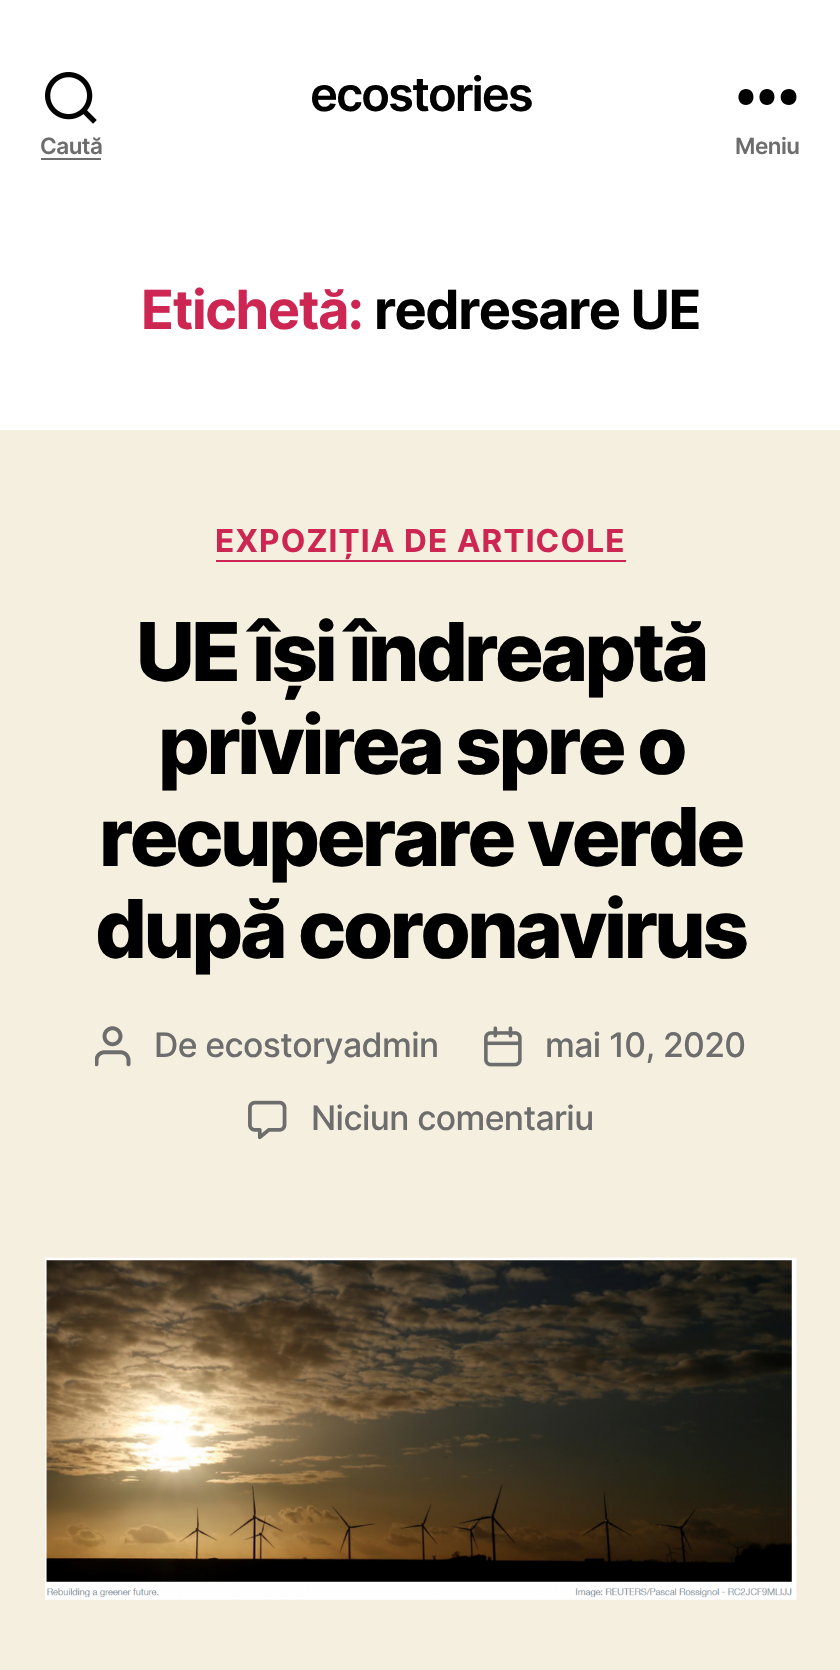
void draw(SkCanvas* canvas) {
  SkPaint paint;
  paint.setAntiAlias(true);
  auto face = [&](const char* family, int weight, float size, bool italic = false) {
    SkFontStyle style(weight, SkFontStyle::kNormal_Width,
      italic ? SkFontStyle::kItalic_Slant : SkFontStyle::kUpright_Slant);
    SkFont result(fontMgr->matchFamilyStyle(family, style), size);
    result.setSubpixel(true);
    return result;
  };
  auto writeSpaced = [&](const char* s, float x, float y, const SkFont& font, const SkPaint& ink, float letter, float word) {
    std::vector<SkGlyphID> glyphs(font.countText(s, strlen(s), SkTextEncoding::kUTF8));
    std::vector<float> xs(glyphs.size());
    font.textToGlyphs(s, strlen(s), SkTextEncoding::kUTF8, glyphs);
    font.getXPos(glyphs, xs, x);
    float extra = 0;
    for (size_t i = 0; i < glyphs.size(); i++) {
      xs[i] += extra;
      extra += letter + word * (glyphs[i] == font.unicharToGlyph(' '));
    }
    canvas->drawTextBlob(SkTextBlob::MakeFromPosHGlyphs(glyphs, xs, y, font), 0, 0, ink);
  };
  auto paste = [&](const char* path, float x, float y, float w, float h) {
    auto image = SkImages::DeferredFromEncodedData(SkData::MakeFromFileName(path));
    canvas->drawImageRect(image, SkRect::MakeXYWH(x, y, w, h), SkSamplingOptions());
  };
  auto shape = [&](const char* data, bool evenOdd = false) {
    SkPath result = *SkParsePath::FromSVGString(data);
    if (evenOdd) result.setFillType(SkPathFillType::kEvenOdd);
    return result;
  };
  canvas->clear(0xfff5efe0);
  paint.setColor(0xffffffff);
  canvas->drawRect(SkRect::MakeXYWH(0, 0, 840, 430), paint);
  paste("img/1.png", 45, 72, 52, 52);
  paint.setColor(0xff6d6d6d);
  canvas->drawRect(SkRect::MakeXYWH(41, 158, 60, 2), paint);
  paint.setColor(0xff000000);
  canvas->drawPath(shape("M746 105C736 105 736 89 746 89C756 89 756 105 746 105ZM767 105C757 105 757 89 767 89C777 89 777 105 767 105ZM789 105C778 105 778 89 789 89C799 89 799 105 789 105Z", true), paint);
  paint.setColor(0xffcd2653);
  canvas->drawRect(SkRect::MakeXYWH(216, 560, 410, 2), paint);
  paste("img/2.png", 95, 1026, 36, 41);
  paste("img/3.png", 484, 1026, 38, 41);
  paste("img/4.png", 248, 1100, 39, 40);
  paste("img/5.png", 45, 1257, 752, 343);
  auto f0 = face("Inter", 600, 47.25f);
  paint.setColor(0xff000000);
  writeSpaced("ecostories", 310, 111, f0, paint, -2, 0);
  auto f1 = face("Inter", 600, 22.5f);
  paint.setColor(0xff6d6d6d);
  writeSpaced("Caută", 40, 154, f1, paint, -0.5f, 0);
  writeSpaced("Meniu", 735, 154, f1, paint, -0.5f, 0);
  auto f2 = face("Inter", 700, 54);
  paint.setColor(0xffcd2653);
  writeSpaced("Etichetă:", 141, 329, f2, paint, -1.5f, 0);
  paint.setColor(0xff000000);
  writeSpaced("redresare UE", 374, 329, f2, paint, -1.5f, 0);
  auto f3 = face("Inter", 700, 31.5f);
  paint.setColor(0xffcd2653);
  writeSpaced("EXPOZIȚIA DE ARTICOLE", 215, 552, f3, paint, 1.15f, 0);
  auto f4 = face("Inter", 800, 81);
  paint.setColor(0xff000000);
  {
    const struct { const char* s; float x, y; } items[] = {
      {"UE își îndreaptă", 136, 681},
      {"privirea spre o", 158, 774},
      {"recuperare verde", 99, 866},
      {"după coronavirus", 95, 958},
    };
    for (auto [s, x, y] : items) {
      writeSpaced(s, x, y, f4, paint, -3.4f, 0);
    }
  }
  auto f5 = face("Inter", 500, 33.75f);
  paint.setColor(0xff6d6d6d);
  {
    const struct { const char* s; float x, y; } items[] = {
      {"De ecostoryadmin", 154, 1057},
      {"mai 10, 2020", 545, 1057},
      {"Niciun comentariu", 311, 1130},
    };
    for (auto [s, x, y] : items) {
      writeSpaced(s, x, y, f5, paint, -0.6f, 0);
    }
  }
}
